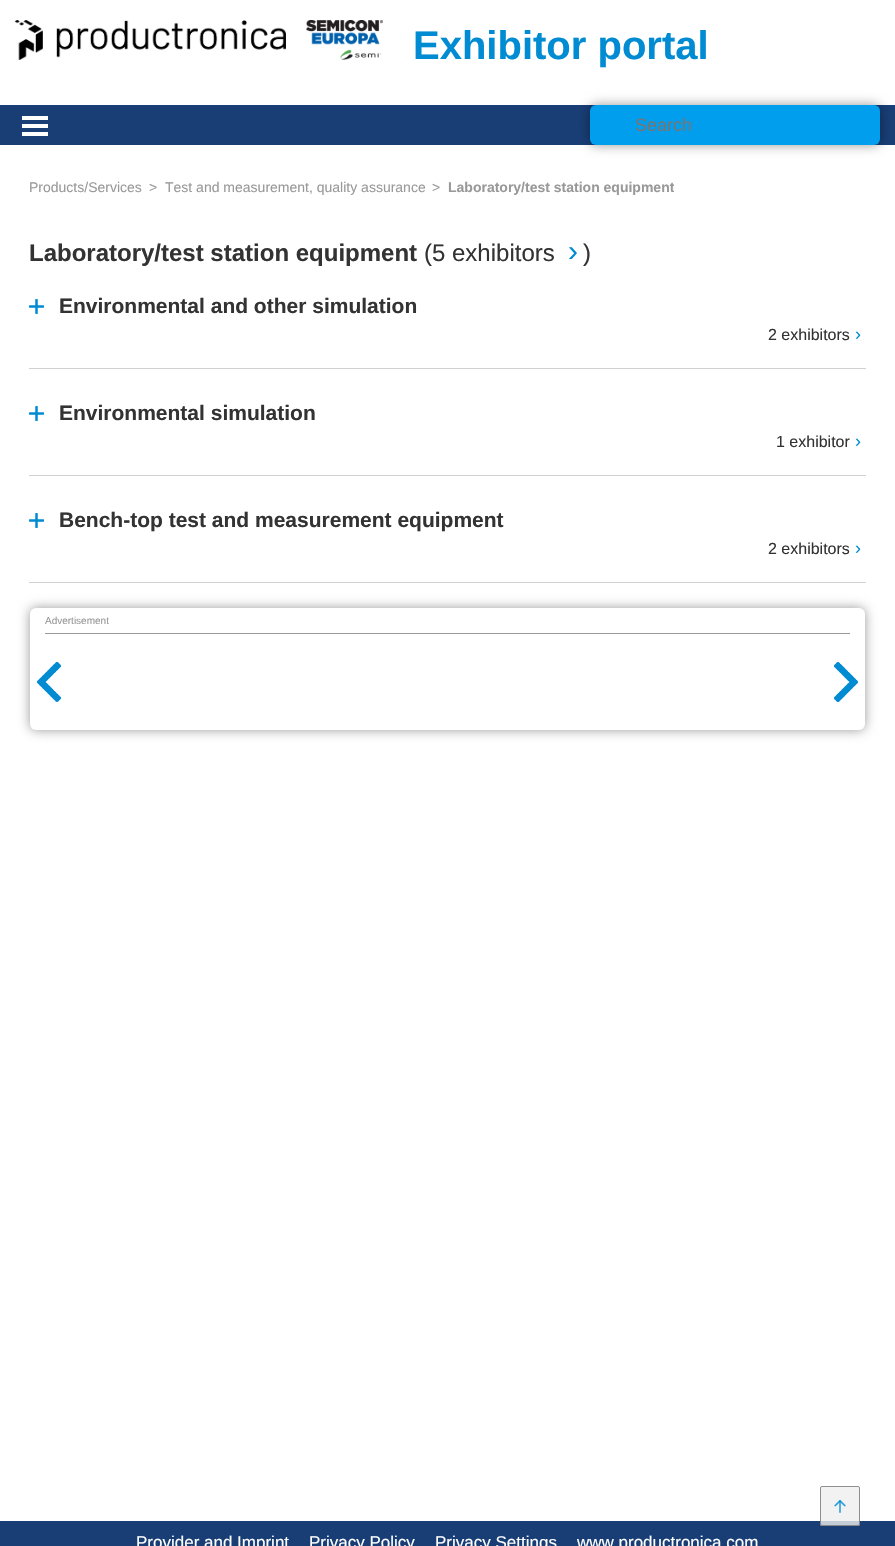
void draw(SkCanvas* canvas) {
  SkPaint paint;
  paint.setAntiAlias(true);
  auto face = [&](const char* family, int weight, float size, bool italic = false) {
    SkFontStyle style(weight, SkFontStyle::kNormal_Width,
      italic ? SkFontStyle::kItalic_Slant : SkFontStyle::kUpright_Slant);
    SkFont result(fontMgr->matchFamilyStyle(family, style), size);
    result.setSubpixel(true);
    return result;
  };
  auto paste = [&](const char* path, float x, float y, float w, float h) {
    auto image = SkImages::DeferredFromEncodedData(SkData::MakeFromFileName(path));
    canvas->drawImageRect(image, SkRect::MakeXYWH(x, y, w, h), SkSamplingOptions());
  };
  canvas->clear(0xffffffff);
  paste("img/1.png", 15, 20, 271, 40);
  paste("img/2.png", 306, 20, 77, 40);
  paint.setColor(0xff183e75);
  canvas->drawRect(SkRect::MakeXYWH(0, 105, 895, 40), paint);
  paint.setColor(0x66000000);
  paint.setMaskFilter(SkMaskFilter::MakeBlur(kNormal_SkBlurStyle, 6));
  canvas->drawRoundRect(SkRect::MakeXYWH(590, 105, 290, 40), 6, 6, paint);
  paint.setMaskFilter(nullptr);
  paint.setColor(0xff009eed);
  canvas->drawRoundRect(SkRect::MakeXYWH(590, 105, 290, 40), 6, 6, paint);
  paste("img/3.png", 22, 116, 26, 20);
  paste("img/4.png", 29, 299, 15, 15);
  paint.setColor(0xffd1d1d1);
  canvas->drawRect(SkRect::MakeXYWH(29, 368, 837, 1), paint);
  paste("img/4.png", 29, 406, 15, 15);
  canvas->drawRect(SkRect::MakeXYWH(29, 475, 837, 1), paint);
  paste("img/4.png", 29, 513, 15, 15);
  canvas->drawRect(SkRect::MakeXYWH(29, 582, 837, 1), paint);
  paint.setColor(0x66000000);
  paint.setMaskFilter(SkMaskFilter::MakeBlur(kNormal_SkBlurStyle, 6));
  canvas->drawRoundRect(SkRect::MakeXYWH(30, 608, 835, 122), 6, 6, paint);
  paint.setMaskFilter(nullptr);
  paint.setColor(0xffffffff);
  canvas->drawRoundRect(SkRect::MakeXYWH(30, 608, 835, 122), 6, 6, paint);
  paint.setColor(0xff999999);
  canvas->drawRect(SkRect::MakeXYWH(45, 633, 805, 1), paint);
  paste("img/5.png", 37, 662, 24, 40);
  paste("img/6.png", 834, 662, 24, 40);
  paint.setColor(0xff183e75);
  canvas->drawRect(SkRect::MakeXYWH(0, 1521, 895, 25), paint);
  paint.setColor(0xccefefef);
  canvas->drawRoundRect(SkRect::MakeXYWH(820, 1486, 40, 40), 2, 2, paint);
  paint.setStroke(true);
  paint.setStrokeWidth(1);
  paint.setColor(0xcc767676);
  canvas->drawRoundRect(SkRect::MakeXYWH(820.5f, 1486.5f, 39, 39), 1.5f, 1.5f, paint);
  paste("img/7.png", 834, 1500, 12, 13);
  auto f0 = face("Liberation Sans", 700, 40);
  paint.setStroke(false);
  paint.setColor(0xff008bd2);
  canvas->drawString("Exhibitor portal", 413, 59, f0, paint);
  auto f1 = face("Liberation Sans", 400, 18);
  paint.setColor(0xff757575);
  canvas->drawString("Search", 635, 131, f1, paint);
  auto f2 = face("Liberation Sans", 400, 14);
  paint.setColor(0xff999999);
  {
    const struct { const char* s; float x, y; } items[] = {
      {"Products/Services", 29, 192},
      {">", 149, 192},
      {"Test and measurement, quality assurance", 165, 192},
      {">", 432, 192},
    };
    for (auto [s, x, y] : items) {
      canvas->drawString(s, x, y, f2, paint);
    }
  }
  canvas->save();
  canvas->clipRect(SkRect::MakeXYWH(448, 175, 226, 31));
  auto f3 = face("Liberation Sans", 700, 14);
  canvas->drawString("Laboratory/test station equipment", 448, 192, f3, paint);
  canvas->restore();
  auto f4 = face("Liberation Sans", 700, 24);
  paint.setColor(0xff333333);
  canvas->drawString("Laboratory/test station equipment", 29, 261, f4, paint);
  auto f5 = face("Liberation Sans", 400, 24);
  canvas->drawString("(5 exhibitors", 424, 261, f5, paint);
  auto f6 = face("Liberation Sans", 400, 30);
  paint.setColor(0xff008bd2);
  canvas->drawString("›", 568, 261, f6, paint);
  paint.setColor(0xff333333);
  canvas->drawString(")", 583, 261, f5, paint);
  auto f7 = face("Liberation Sans", 700, 21);
  canvas->drawString("Environmental and other simulation", 59, 313, f7, paint);
  auto f8 = face("Liberation Sans", 400, 16);
  canvas->drawString("2 exhibitors", 768, 340, f8, paint);
  paint.setColor(0xff008bd2);
  canvas->drawString("›", 855, 340, f1, paint);
  paint.setColor(0xff333333);
  canvas->drawString("Environmental simulation", 59, 420, f7, paint);
  canvas->drawString("1 exhibitor", 776, 447, f8, paint);
  paint.setColor(0xff008bd2);
  canvas->drawString("›", 855, 447, f1, paint);
  paint.setColor(0xff333333);
  canvas->drawString("Bench-top test and measurement equipment", 59, 527, f7, paint);
  canvas->drawString("2 exhibitors", 768, 554, f8, paint);
  paint.setColor(0xff008bd2);
  canvas->drawString("›", 855, 554, f1, paint);
  auto f9 = face("Liberation Sans", 400, 10);
  paint.setColor(0xff999999);
  canvas->drawString("Advertisement", 45, 624, f9, paint);
  auto f10 = face("Liberation Sans", 400, 17);
  paint.setColor(0xffffffff);
  {
    const struct { const char* s; float x, y; } items[] = {
      {"Provider and Imprint", 136, 1548},
      {"Privacy Policy", 309, 1548},
      {"Privacy Settings", 435, 1548},
      {"www.productronica.com", 577, 1548},
    };
    for (auto [s, x, y] : items) {
      canvas->drawString(s, x, y, f10, paint);
    }
  }
}
